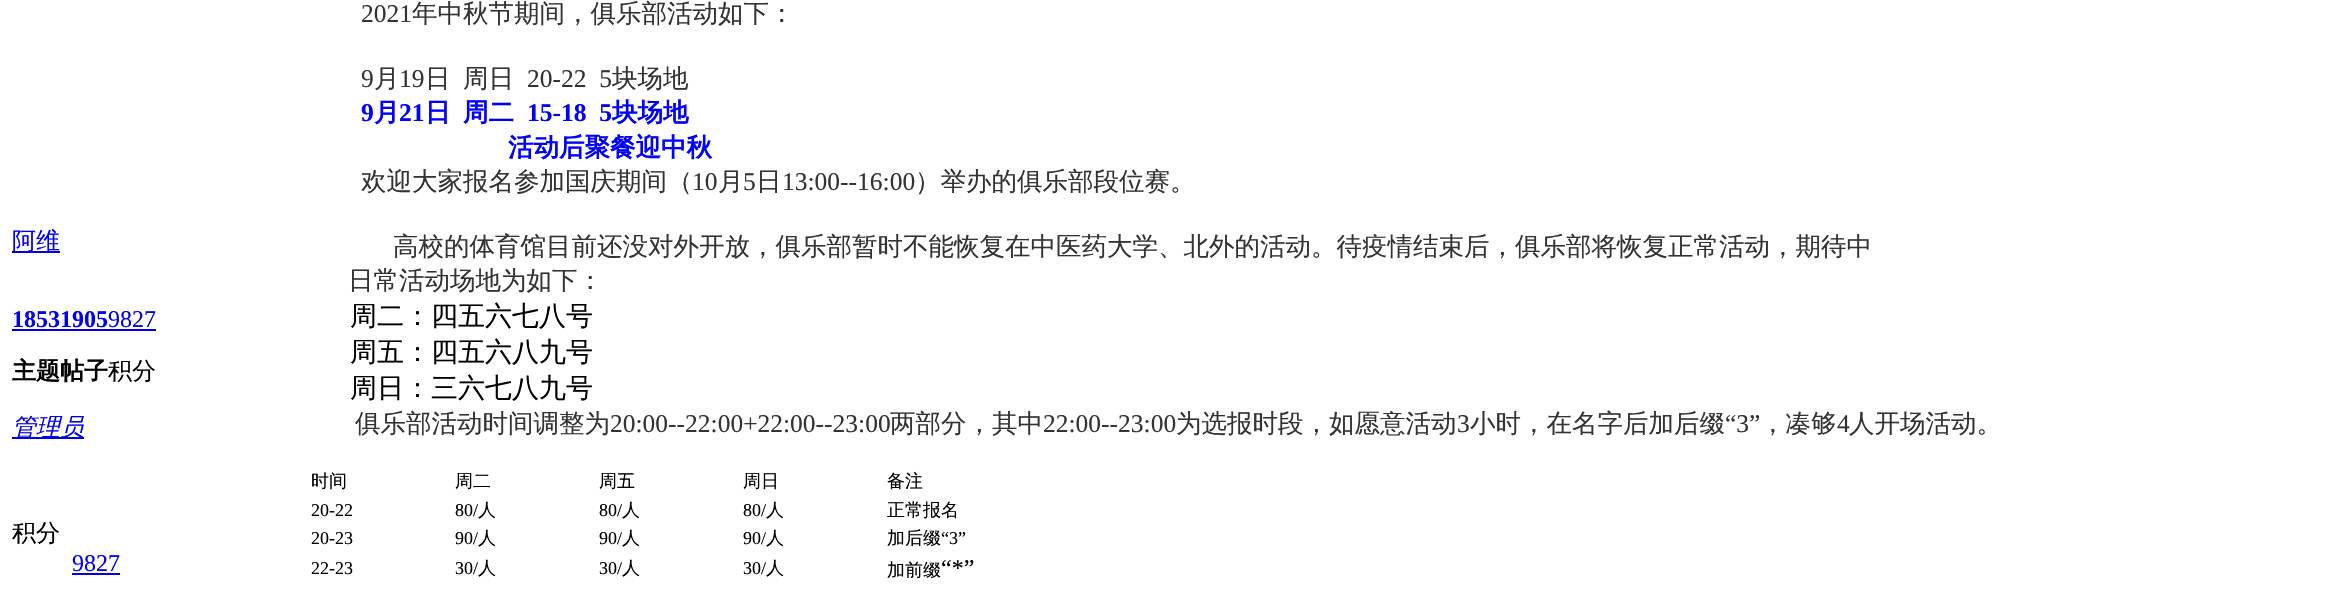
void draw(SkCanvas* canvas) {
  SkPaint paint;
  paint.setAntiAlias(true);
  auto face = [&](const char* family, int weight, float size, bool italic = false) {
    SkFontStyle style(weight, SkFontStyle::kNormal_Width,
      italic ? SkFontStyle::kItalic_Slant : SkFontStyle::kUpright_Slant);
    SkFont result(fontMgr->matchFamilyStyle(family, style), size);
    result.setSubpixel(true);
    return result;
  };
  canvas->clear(0xffffffff);
  {
    const struct { float x, y, w, h; SkColor color; } items[] = {
      {12, 251, 48, 2, 0xff0000ee},
      {12, 329, 144, 2, 0xff0000ee},
      {12, 437, 72, 2, 0xff0000ee},
      {72, 573, 48, 2, 0xff0000ee},
    };
    for (auto [x, y, w, h, color] : items) {
      paint.setColor(color);
      canvas->drawRect(SkRect::MakeXYWH(x, y, w, h), paint);
    }
  }
  auto f0 = face("WenQuanYi Zen Hei", 500, 24);
  canvas->drawString("阿维", 12, 249, f0, paint);
  auto f1 = face("Liberation Serif", 700, 24);
  canvas->drawString("18531905", 12, 327, f1, paint);
  auto f2 = face("WenQuanYi Zen Hei", 700, 24);
  paint.setColor(0xff000000);
  canvas->drawString("主题帖子", 12, 379, f2, paint);
  auto f3 = face("Liberation Serif", 400, 24);
  paint.setColor(0xff0000ee);
  canvas->drawString("9827", 108, 327, f3, paint);
  paint.setColor(0xff000000);
  canvas->drawString("积分", 108, 379, f0, paint);
  auto f4 = face("WenQuanYi Zen Hei", 500, 24, true);
  paint.setColor(0xff0000ee);
  canvas->drawString("管理员", 12, 435, f4, paint);
  paint.setColor(0xff000000);
  canvas->drawString("积分", 12, 541, f0, paint);
  paint.setColor(0xff0000ee);
  canvas->drawString("9827", 72, 571, f3, paint);
  auto f5 = face("Liberation Serif", 400, 25.5f);
  paint.setColor(0xff333333);
  canvas->drawString("2021", 361, 22, f5, paint);
  auto f6 = face("WenQuanYi Zen Hei", 500, 25.5f);
  canvas->drawString("年中秋节期间，俱乐部活动如下：", 412, 22, f6, paint);
  canvas->drawString("9", 361, 87, f5, paint);
  canvas->drawString("月", 374, 87, f6, paint);
  canvas->drawString("19", 399, 87, f5, paint);
  canvas->drawString("日", 425, 87, f6, paint);
  canvas->drawString("周日", 463, 87, f6, paint);
  canvas->drawString("20-22  5", 527, 87, f5, paint);
  canvas->drawString("块场地", 612, 87, f6, paint);
  auto f7 = face("Liberation Serif", 700, 25.5f);
  paint.setColor(0xff0000ff);
  canvas->drawString("9", 361, 121, f7, paint);
  auto f8 = face("WenQuanYi Zen Hei", 700, 25.5f);
  canvas->drawString("月", 374, 121, f8, paint);
  canvas->drawString("21", 399, 121, f7, paint);
  canvas->drawString("日", 425, 121, f8, paint);
  canvas->drawString("周二", 463, 121, f8, paint);
  canvas->drawString("15-18  5", 527, 121, f7, paint);
  canvas->drawString("块场地", 612, 121, f8, paint);
  canvas->drawString("活动后聚餐迎中秋", 508, 156, f8, paint);
  paint.setColor(0xff333333);
  canvas->drawString("欢迎大家报名参加国庆期间（", 361, 190, f6, paint);
  canvas->drawString("10", 692, 190, f5, paint);
  canvas->drawString("月", 718, 190, f6, paint);
  canvas->drawString("5", 743, 190, f5, paint);
  canvas->drawString("日", 756, 190, f6, paint);
  canvas->drawString("13:00--16:00", 782, 190, f5, paint);
  {
    const struct { const char* s; float x, y; } items[] = {
      {"）举办的俱乐部段位赛。", 915, 190},
      {"高校的体育馆目前还没对外开放，俱乐部暂时不能恢复在中医药大学、北外的活动。待疫情结束后，俱乐部将恢复正常活动，期待中", 393, 255},
      {"日常活动场地为如下：", 348, 289},
    };
    for (auto [s, x, y] : items) {
      canvas->drawString(s, x, y, f6, paint);
    }
  }
  auto f9 = face("WenQuanYi Zen Hei", 500, 27);
  paint.setColor(0xff000000);
  {
    const struct { const char* s; float x, y; } items[] = {
      {"周二：四五六七八号", 350, 325},
      {"周五：四五六八九号", 350, 361},
      {"周日：三六七八九号", 350, 397},
    };
    for (auto [s, x, y] : items) {
      canvas->drawString(s, x, y, f9, paint);
    }
  }
  paint.setColor(0xff333333);
  canvas->drawString("俱乐部活动时间调整为", 355, 432, f6, paint);
  canvas->drawString("20:00--22:00+22:00--23:00", 610, 432, f5, paint);
  canvas->drawString("两部分，其中", 890, 432, f6, paint);
  canvas->drawString("22:00--23:00", 1043, 432, f5, paint);
  canvas->drawString("为选报时段，如愿意活动", 1176, 432, f6, paint);
  canvas->drawString("3", 1457, 432, f5, paint);
  canvas->drawString("小时，在名字后加后缀", 1470, 432, f6, paint);
  canvas->drawString("“3”", 1725, 432, f5, paint);
  canvas->drawString("，凑够", 1760, 432, f6, paint);
  canvas->drawString("4", 1837, 432, f5, paint);
  canvas->drawString("人开场活动。", 1849, 432, f6, paint);
  auto f10 = face("WenQuanYi Zen Hei", 500, 18);
  paint.setColor(0xff000000);
  {
    const struct { const char* s; float x, y; } items[] = {
      {"时间", 311, 487},
      {"周二", 455, 487},
      {"周五", 599, 487},
      {"周日", 743, 487},
      {"备注", 887, 487},
    };
    for (auto [s, x, y] : items) {
      canvas->drawString(s, x, y, f10, paint);
    }
  }
  auto f11 = face("Liberation Serif", 400, 18);
  canvas->drawString("20-22", 311, 516, f11, paint);
  canvas->drawString("80/", 455, 516, f11, paint);
  canvas->drawString("人", 478, 516, f10, paint);
  canvas->drawString("80/", 599, 516, f11, paint);
  canvas->drawString("人", 622, 516, f10, paint);
  canvas->drawString("80/", 743, 516, f11, paint);
  canvas->drawString("人", 766, 516, f10, paint);
  canvas->drawString("正常报名", 887, 516, f10, paint);
  canvas->drawString("20-23", 311, 544, f11, paint);
  canvas->drawString("90/", 455, 544, f11, paint);
  canvas->drawString("人", 478, 544, f10, paint);
  canvas->drawString("90/", 599, 544, f11, paint);
  canvas->drawString("人", 622, 544, f10, paint);
  canvas->drawString("90/", 743, 544, f11, paint);
  canvas->drawString("人", 766, 544, f10, paint);
  canvas->drawString("加后缀", 887, 544, f10, paint);
  {
    const struct { const char* s; float x, y; } items[] = {
      {"“3”", 941, 544},
      {"22-23", 311, 574},
      {"30/", 455, 574},
    };
    for (auto [s, x, y] : items) {
      canvas->drawString(s, x, y, f11, paint);
    }
  }
  canvas->drawString("人", 478, 574, f10, paint);
  canvas->drawString("30/", 599, 574, f11, paint);
  canvas->drawString("人", 622, 574, f10, paint);
  canvas->drawString("30/", 743, 574, f11, paint);
  canvas->drawString("人", 766, 574, f10, paint);
  canvas->drawString("加前缀", 887, 576, f10, paint);
  canvas->drawString("“*”", 941, 576, f3, paint);
}
